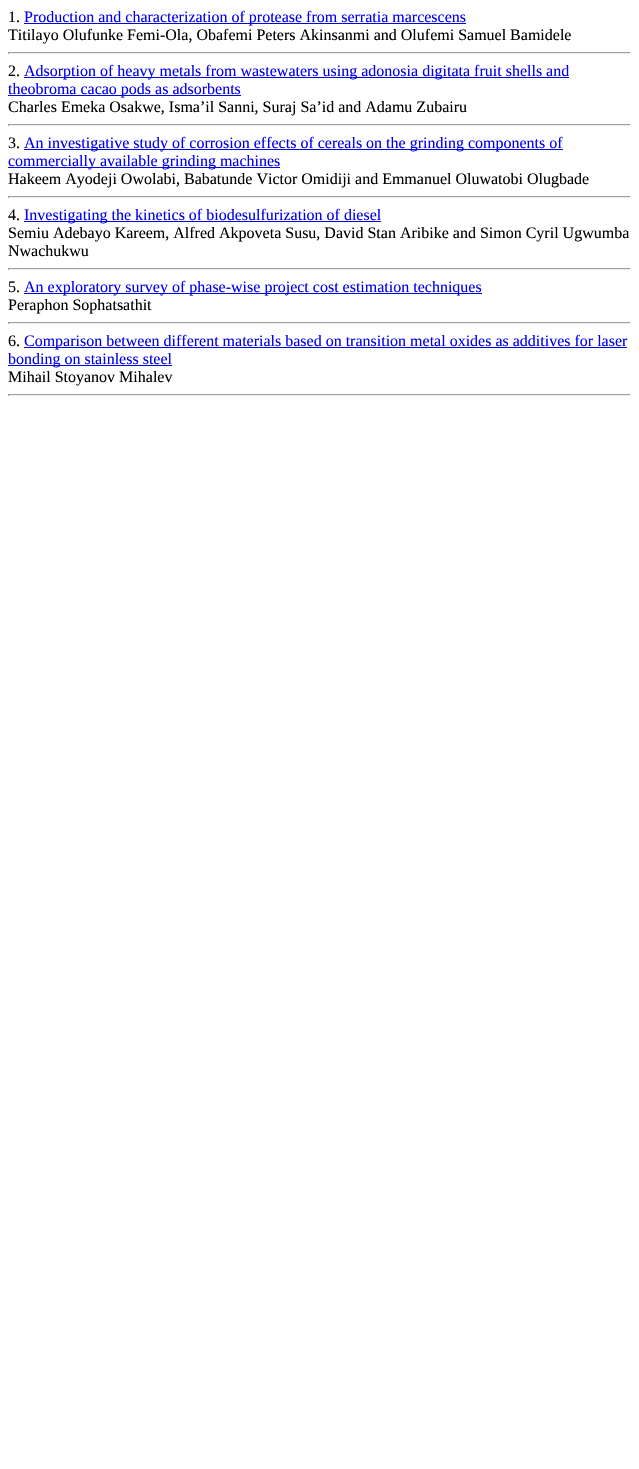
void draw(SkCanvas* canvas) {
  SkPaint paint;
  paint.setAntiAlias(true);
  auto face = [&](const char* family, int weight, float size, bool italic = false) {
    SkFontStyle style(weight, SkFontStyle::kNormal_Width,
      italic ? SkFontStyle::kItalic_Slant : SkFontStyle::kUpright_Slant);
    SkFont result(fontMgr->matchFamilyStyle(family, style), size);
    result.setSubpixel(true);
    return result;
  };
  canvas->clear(0xffffffff);
  {
    const struct { float x, y, w, h; SkColor color; } items[] = {
      {24, 23, 442, 1, 0xff0000ee},
      {8, 52, 623, 1, 0xff9f9f9f},
      {630, 52, 1, 2, 0xffeeeeee},
      {8, 53, 623, 1, 0xffeeeeee},
      {8, 52, 1, 2, 0xff9f9f9f},
      {24, 77, 545, 1, 0xff0000ee},
      {8, 95, 233, 1, 0xff0000ee},
      {8, 124, 623, 1, 0xff9f9f9f},
      {630, 124, 1, 2, 0xffeeeeee},
      {8, 125, 623, 1, 0xffeeeeee},
      {8, 124, 1, 2, 0xff9f9f9f},
      {24, 149, 539, 1, 0xff0000ee},
      {8, 167, 272, 1, 0xff0000ee},
      {8, 196, 623, 1, 0xff9f9f9f},
      {630, 196, 1, 2, 0xffeeeeee},
      {8, 197, 623, 1, 0xffeeeeee},
      {8, 196, 1, 2, 0xff9f9f9f},
      {24, 221, 357, 1, 0xff0000ee},
      {8, 268, 623, 1, 0xff9f9f9f},
      {630, 268, 1, 2, 0xffeeeeee},
      {8, 269, 623, 1, 0xffeeeeee},
      {8, 268, 1, 2, 0xff9f9f9f},
      {24, 293, 458, 1, 0xff0000ee},
      {8, 322, 623, 1, 0xff9f9f9f},
      {630, 322, 1, 2, 0xffeeeeee},
      {8, 323, 623, 1, 0xffeeeeee},
      {8, 322, 1, 2, 0xff9f9f9f},
      {24, 347, 603, 1, 0xff0000ee},
      {8, 365, 164, 1, 0xff0000ee},
      {8, 394, 623, 1, 0xff9f9f9f},
      {630, 394, 1, 2, 0xffeeeeee},
      {8, 395, 623, 1, 0xffeeeeee},
      {8, 394, 1, 2, 0xff9f9f9f},
    };
    for (auto [x, y, w, h, color] : items) {
      paint.setColor(color);
      canvas->drawRect(SkRect::MakeXYWH(x, y, w, h), paint);
    }
  }
  auto f0 = face("Liberation Serif", 400, 16);
  paint.setColor(0xff000000);
  canvas->drawString("1.", 8, 22, f0, paint);
  paint.setColor(0xff0000ee);
  canvas->drawString("Production and characterization of protease from serratia marcescens", 24, 22, f0, paint);
  paint.setColor(0xff000000);
  canvas->drawString("Titilayo Olufunke Femi-Ola, Obafemi Peters Akinsanmi and Olufemi Samuel Bamidele", 8, 40, f0, paint);
  canvas->drawString("2.", 8, 76, f0, paint);
  paint.setColor(0xff0000ee);
  canvas->drawString("Adsorption of heavy metals from wastewaters using adonosia digitata fruit shells and", 24, 76, f0, paint);
  canvas->drawString("theobroma cacao pods as adsorbents", 8, 94, f0, paint);
  paint.setColor(0xff000000);
  canvas->drawString("Charles Emeka Osakwe, Isma’il Sanni, Suraj Sa’id and Adamu Zubairu", 8, 112, f0, paint);
  canvas->drawString("3.", 8, 148, f0, paint);
  paint.setColor(0xff0000ee);
  canvas->drawString("An investigative study of corrosion effects of cereals on the grinding components of", 24, 148, f0, paint);
  canvas->drawString("commercially available grinding machines", 8, 166, f0, paint);
  paint.setColor(0xff000000);
  canvas->drawString("Hakeem Ayodeji Owolabi, Babatunde Victor Omidiji and Emmanuel Oluwatobi Olugbade", 8, 184, f0, paint);
  canvas->drawString("4.", 8, 220, f0, paint);
  paint.setColor(0xff0000ee);
  canvas->drawString("Investigating the kinetics of biodesulfurization of diesel", 24, 220, f0, paint);
  paint.setColor(0xff000000);
  {
    const struct { const char* s; float x, y; } items[] = {
      {"Semiu Adebayo Kareem, Alfred Akpoveta Susu, David Stan Aribike and Simon Cyril Ugwumba", 8, 238},
      {"Nwachukwu", 8, 256},
      {"5.", 8, 292},
    };
    for (auto [s, x, y] : items) {
      canvas->drawString(s, x, y, f0, paint);
    }
  }
  paint.setColor(0xff0000ee);
  canvas->drawString("An exploratory survey of phase-wise project cost estimation techniques", 24, 292, f0, paint);
  paint.setColor(0xff000000);
  canvas->drawString("Peraphon Sophatsathit", 8, 310, f0, paint);
  canvas->drawString("6.", 8, 346, f0, paint);
  paint.setColor(0xff0000ee);
  canvas->drawString("Comparison between different materials based on transition metal oxides as additives for laser", 24, 346, f0, paint);
  canvas->drawString("bonding on stainless steel", 8, 364, f0, paint);
  paint.setColor(0xff000000);
  canvas->drawString("Mihail Stoyanov Mihalev", 8, 382, f0, paint);
}
